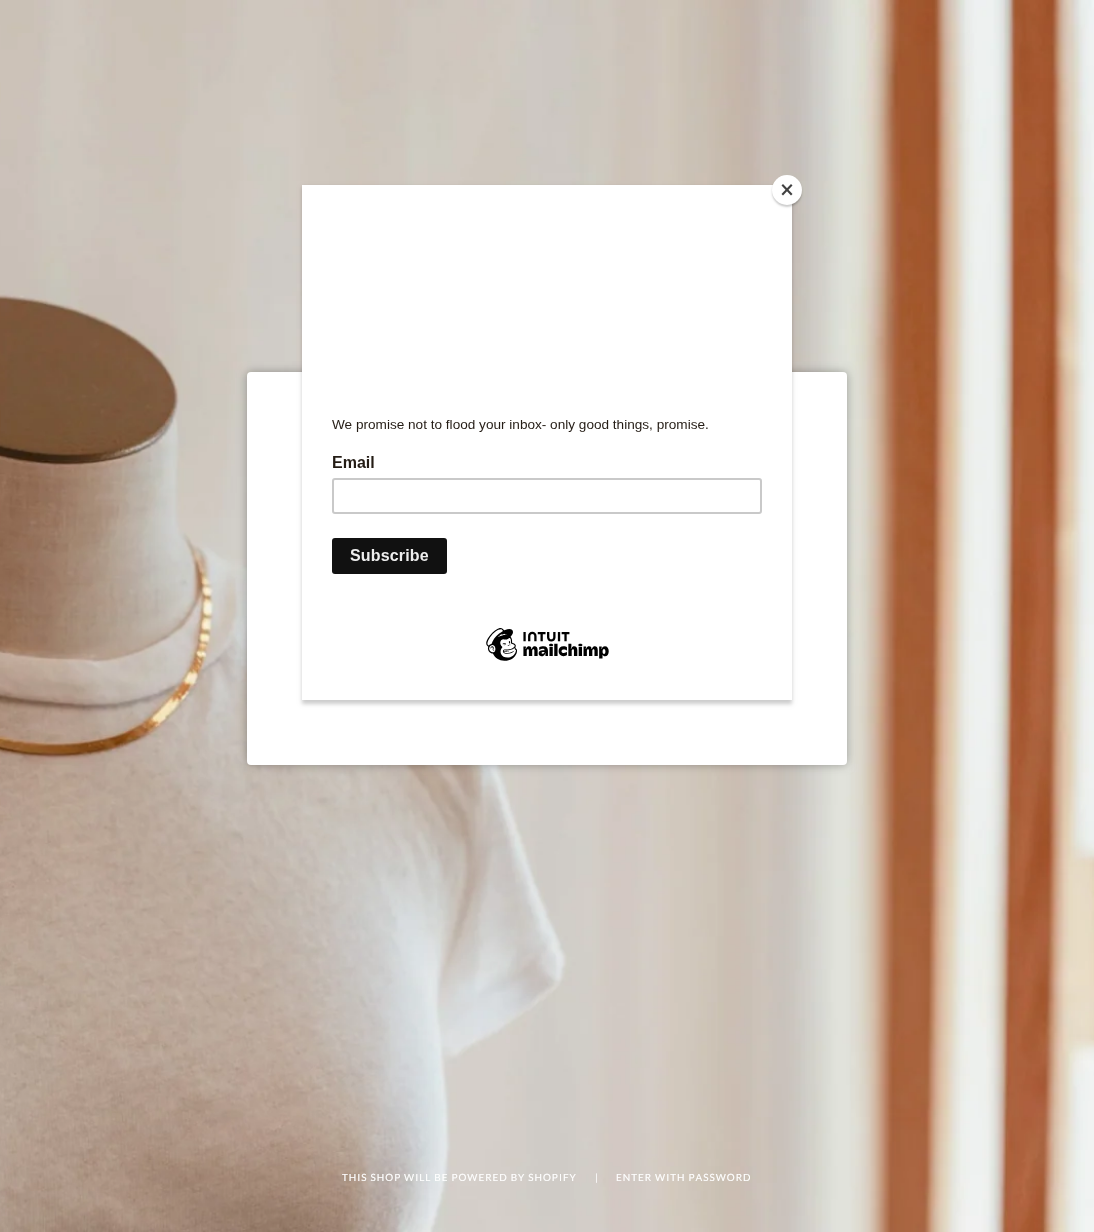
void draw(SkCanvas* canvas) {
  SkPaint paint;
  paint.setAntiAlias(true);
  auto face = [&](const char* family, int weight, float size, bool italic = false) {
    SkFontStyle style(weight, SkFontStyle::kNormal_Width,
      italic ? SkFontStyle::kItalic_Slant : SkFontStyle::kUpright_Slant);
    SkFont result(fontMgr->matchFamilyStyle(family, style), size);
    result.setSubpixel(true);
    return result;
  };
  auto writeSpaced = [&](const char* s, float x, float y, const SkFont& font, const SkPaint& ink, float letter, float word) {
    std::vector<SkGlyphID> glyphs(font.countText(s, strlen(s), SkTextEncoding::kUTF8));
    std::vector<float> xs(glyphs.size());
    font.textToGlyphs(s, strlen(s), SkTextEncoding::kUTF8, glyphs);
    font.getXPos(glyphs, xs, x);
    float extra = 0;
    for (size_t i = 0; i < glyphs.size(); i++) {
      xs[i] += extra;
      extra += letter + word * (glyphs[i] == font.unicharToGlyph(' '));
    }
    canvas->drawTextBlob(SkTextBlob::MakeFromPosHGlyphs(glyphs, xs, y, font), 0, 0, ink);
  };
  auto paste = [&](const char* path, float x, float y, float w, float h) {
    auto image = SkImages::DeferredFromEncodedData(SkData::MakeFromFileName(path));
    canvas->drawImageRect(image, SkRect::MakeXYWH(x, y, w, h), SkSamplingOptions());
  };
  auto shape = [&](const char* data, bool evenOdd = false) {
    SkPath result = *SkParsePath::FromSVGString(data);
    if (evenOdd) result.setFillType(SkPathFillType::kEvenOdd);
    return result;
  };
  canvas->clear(0xffffffff);
  paste("img/2.png", 0, 0, 1094, 1232);
  paint.setColor(0x4d000000);
  paint.setMaskFilter(SkMaskFilter::MakeBlur(kNormal_SkBlurStyle, 5));
  canvas->drawRoundRect(SkRect::MakeXYWH(247, 372, 600, 393), 4, 4, paint);
  paint.setMaskFilter(nullptr);
  paint.setColor(0xffffffff);
  canvas->drawRoundRect(SkRect::MakeXYWH(247, 372, 600, 393), 4, 4, paint);
  paint.setColor(0x33000000);
  paint.setMaskFilter(SkMaskFilter::MakeBlur(kNormal_SkBlurStyle, 2));
  canvas->drawRect(SkRect::MakeXYWH(302, 187, 490, 517), paint);
  paint.setMaskFilter(nullptr);
  paste("img/1.png", 302, 185, 490, 515);
  paint.setMaskFilter(SkMaskFilter::MakeBlur(kNormal_SkBlurStyle, 1));
  canvas->drawRoundRect(SkRect::MakeXYWH(772, 177, 30, 30), 15, 15, paint);
  paint.setMaskFilter(nullptr);
  paint.setColor(0xffffffff);
  canvas->drawCircle(787, 190, 15, paint);
  paint.setColor(0xff414141);
  canvas->drawPath(shape("M791 184L792.5 185.5L783 195.5L781.5 194Z"), paint);
  canvas->drawPath(shape("M781.5 185.5L783 184L792.5 194L791 195.5Z"), paint);
  auto f0 = face("Lato", 400, 9.9f);
  paint.setColor(0xffffffff);
  {
    const struct { const char* s; float x, y; } items[] = {
      {"THIS SHOP WILL BE POWERED BY SHOPIFY", 342, 1181},
      {"|", 595, 1181},
      {"ENTER WITH PASSWORD", 616, 1181},
    };
    for (auto [s, x, y] : items) {
      writeSpaced(s, x, y, f0, paint, 1, 0);
    }
  }
}
